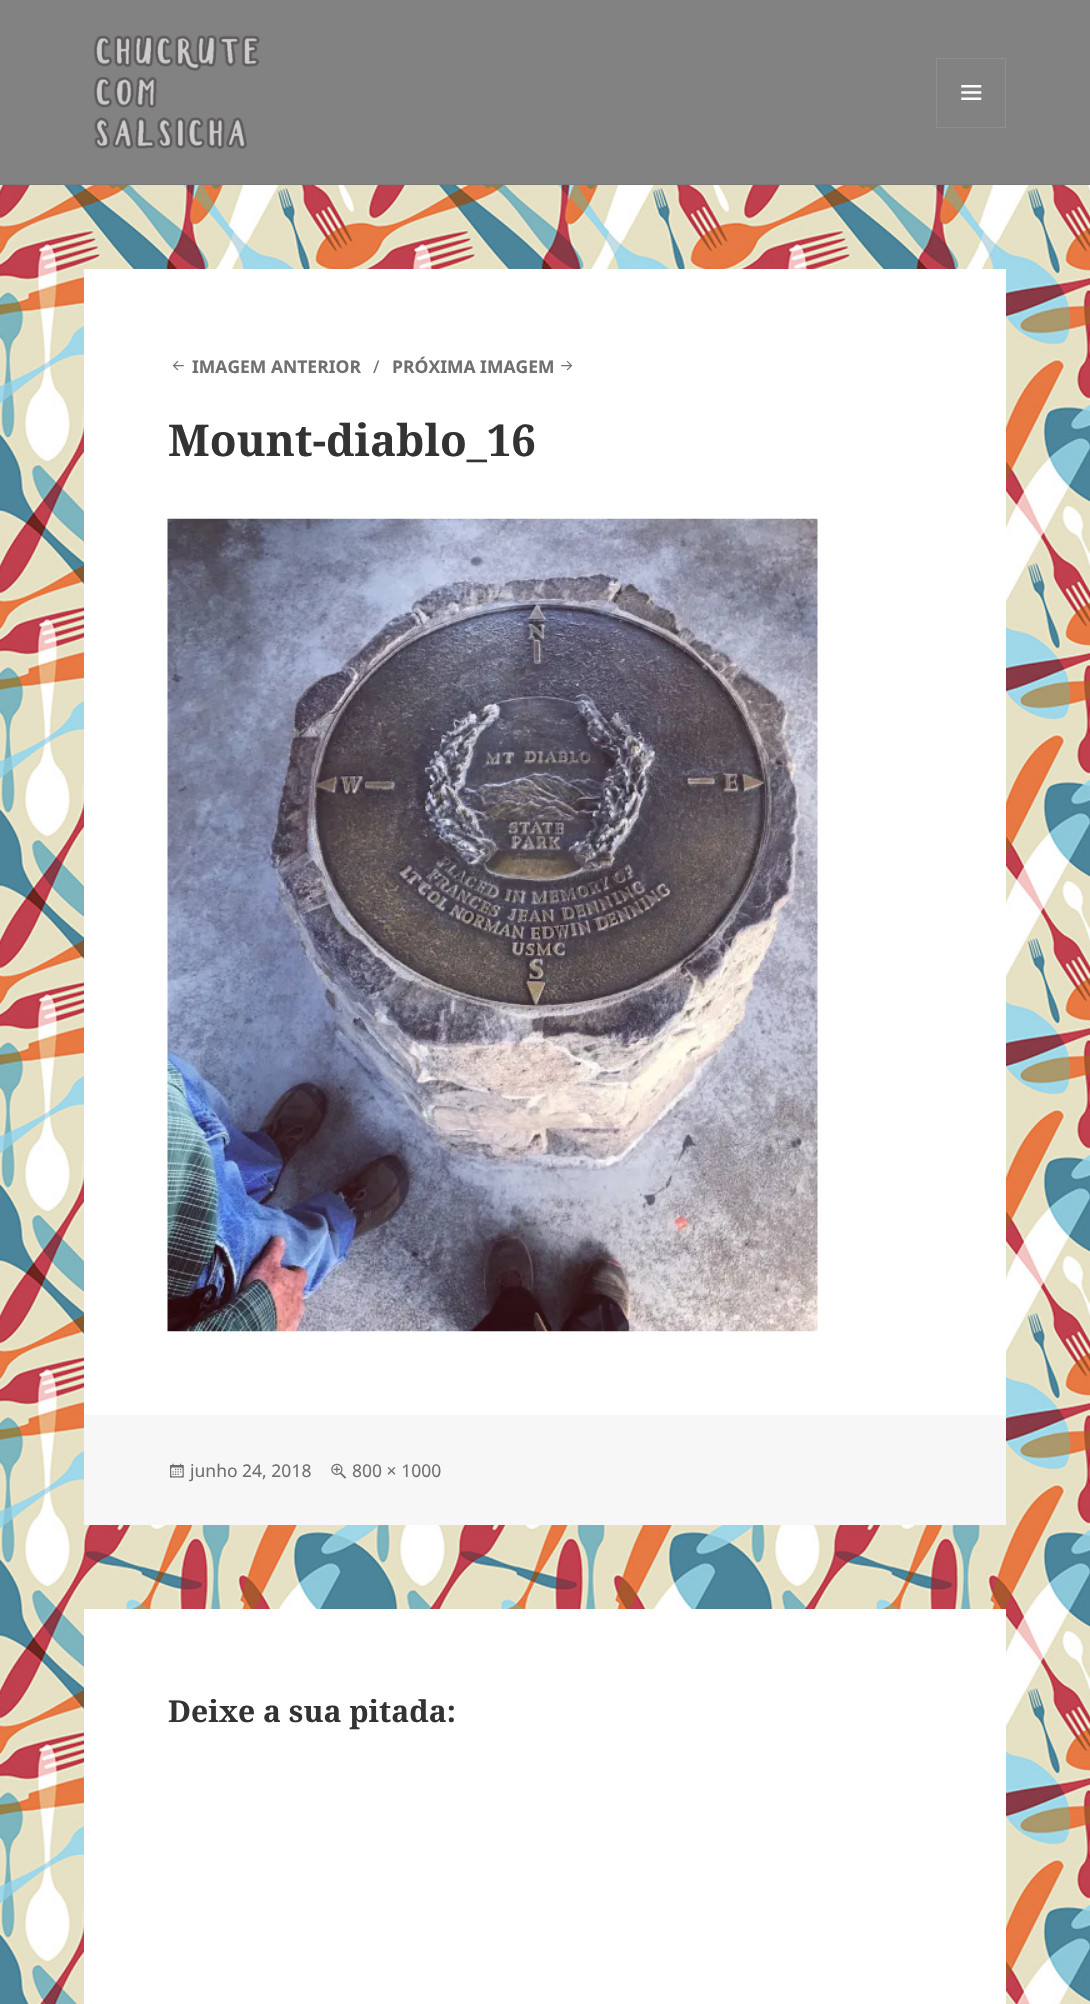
void draw(SkCanvas* canvas) {
  SkPaint paint;
  paint.setAntiAlias(true);
  auto face = [&](const char* family, int weight, float size, bool italic = false) {
    SkFontStyle style(weight, SkFontStyle::kNormal_Width,
      italic ? SkFontStyle::kItalic_Slant : SkFontStyle::kUpright_Slant);
    SkFont result(fontMgr->matchFamilyStyle(family, style), size);
    result.setSubpixel(true);
    return result;
  };
  auto paste = [&](const char* path, float x, float y, float w, float h) {
    auto image = SkImages::DeferredFromEncodedData(SkData::MakeFromFileName(path));
    canvas->drawImageRect(image, SkRect::MakeXYWH(x, y, w, h), SkSamplingOptions());
  };
  canvas->clear(0xffffffff);
  paste("img/1.png", 0, 185, 1090, 1819);
  paint.setColor(0xff828282);
  canvas->drawRect(SkRect::MakeXYWH(0, 0, 1090, 184), paint);
  paint.setColor(0xff7a7a7a);
  canvas->drawRect(SkRect::MakeXYWH(0, 184, 1090, 1), paint);
  paste("img/2.png", 94, 35, 166, 114);
  paint.setStroke(true);
  paint.setStrokeWidth(1);
  paint.setColor(0xff8f8f8f);
  canvas->drawRect(SkRect::MakeXYWH(936.5f, 58.5f, 69, 69), paint);
  paste("img/3.png", 961, 85, 21, 15);
  paint.setStroke(false);
  paint.setColor(0xffffffff);
  canvas->drawRect(SkRect::MakeXYWH(84, 269, 922, 1146), paint);
  paste("img/4.png", 172, 360, 12, 11);
  paste("img/5.png", 561, 360, 12, 11);
  paste("img/6.png", 167, 518, 651, 814);
  paint.setColor(0xfff7f7f7);
  canvas->drawRect(SkRect::MakeXYWH(84, 1415, 922, 110), paint);
  paste("img/7.png", 170, 1463, 14, 15);
  paste("img/8.png", 331, 1463, 16, 16);
  paint.setColor(0xffffffff);
  canvas->drawRect(SkRect::MakeXYWH(84, 1609, 922, 395), paint);
  auto f0 = face("Noto Sans", 700, 17.5f);
  paint.setColor(0xff707070);
  canvas->drawString("IMAGEM ANTERIOR", 192, 373, f0, paint);
  auto f1 = face("Noto Sans", 400, 17.5f);
  canvas->drawString("∕", 373, 373, f1, paint);
  canvas->drawString("PRÓXIMA IMAGEM", 392, 373, f0, paint);
  auto f2 = face("Noto Serif", 700, 43.75f);
  paint.setColor(0xff333333);
  canvas->drawString("Mount-diablo_16", 168, 456, f2, paint);
  paint.setColor(0xff707070);
  canvas->drawString("junho 24, 2018", 190, 1477, f1, paint);
  canvas->drawString("800 × 1000", 352, 1477, f1, paint);
  auto f3 = face("Noto Serif", 700, 30);
  paint.setColor(0xff333333);
  canvas->drawString("Deixe a sua pitada:", 168, 1722, f3, paint);
}
